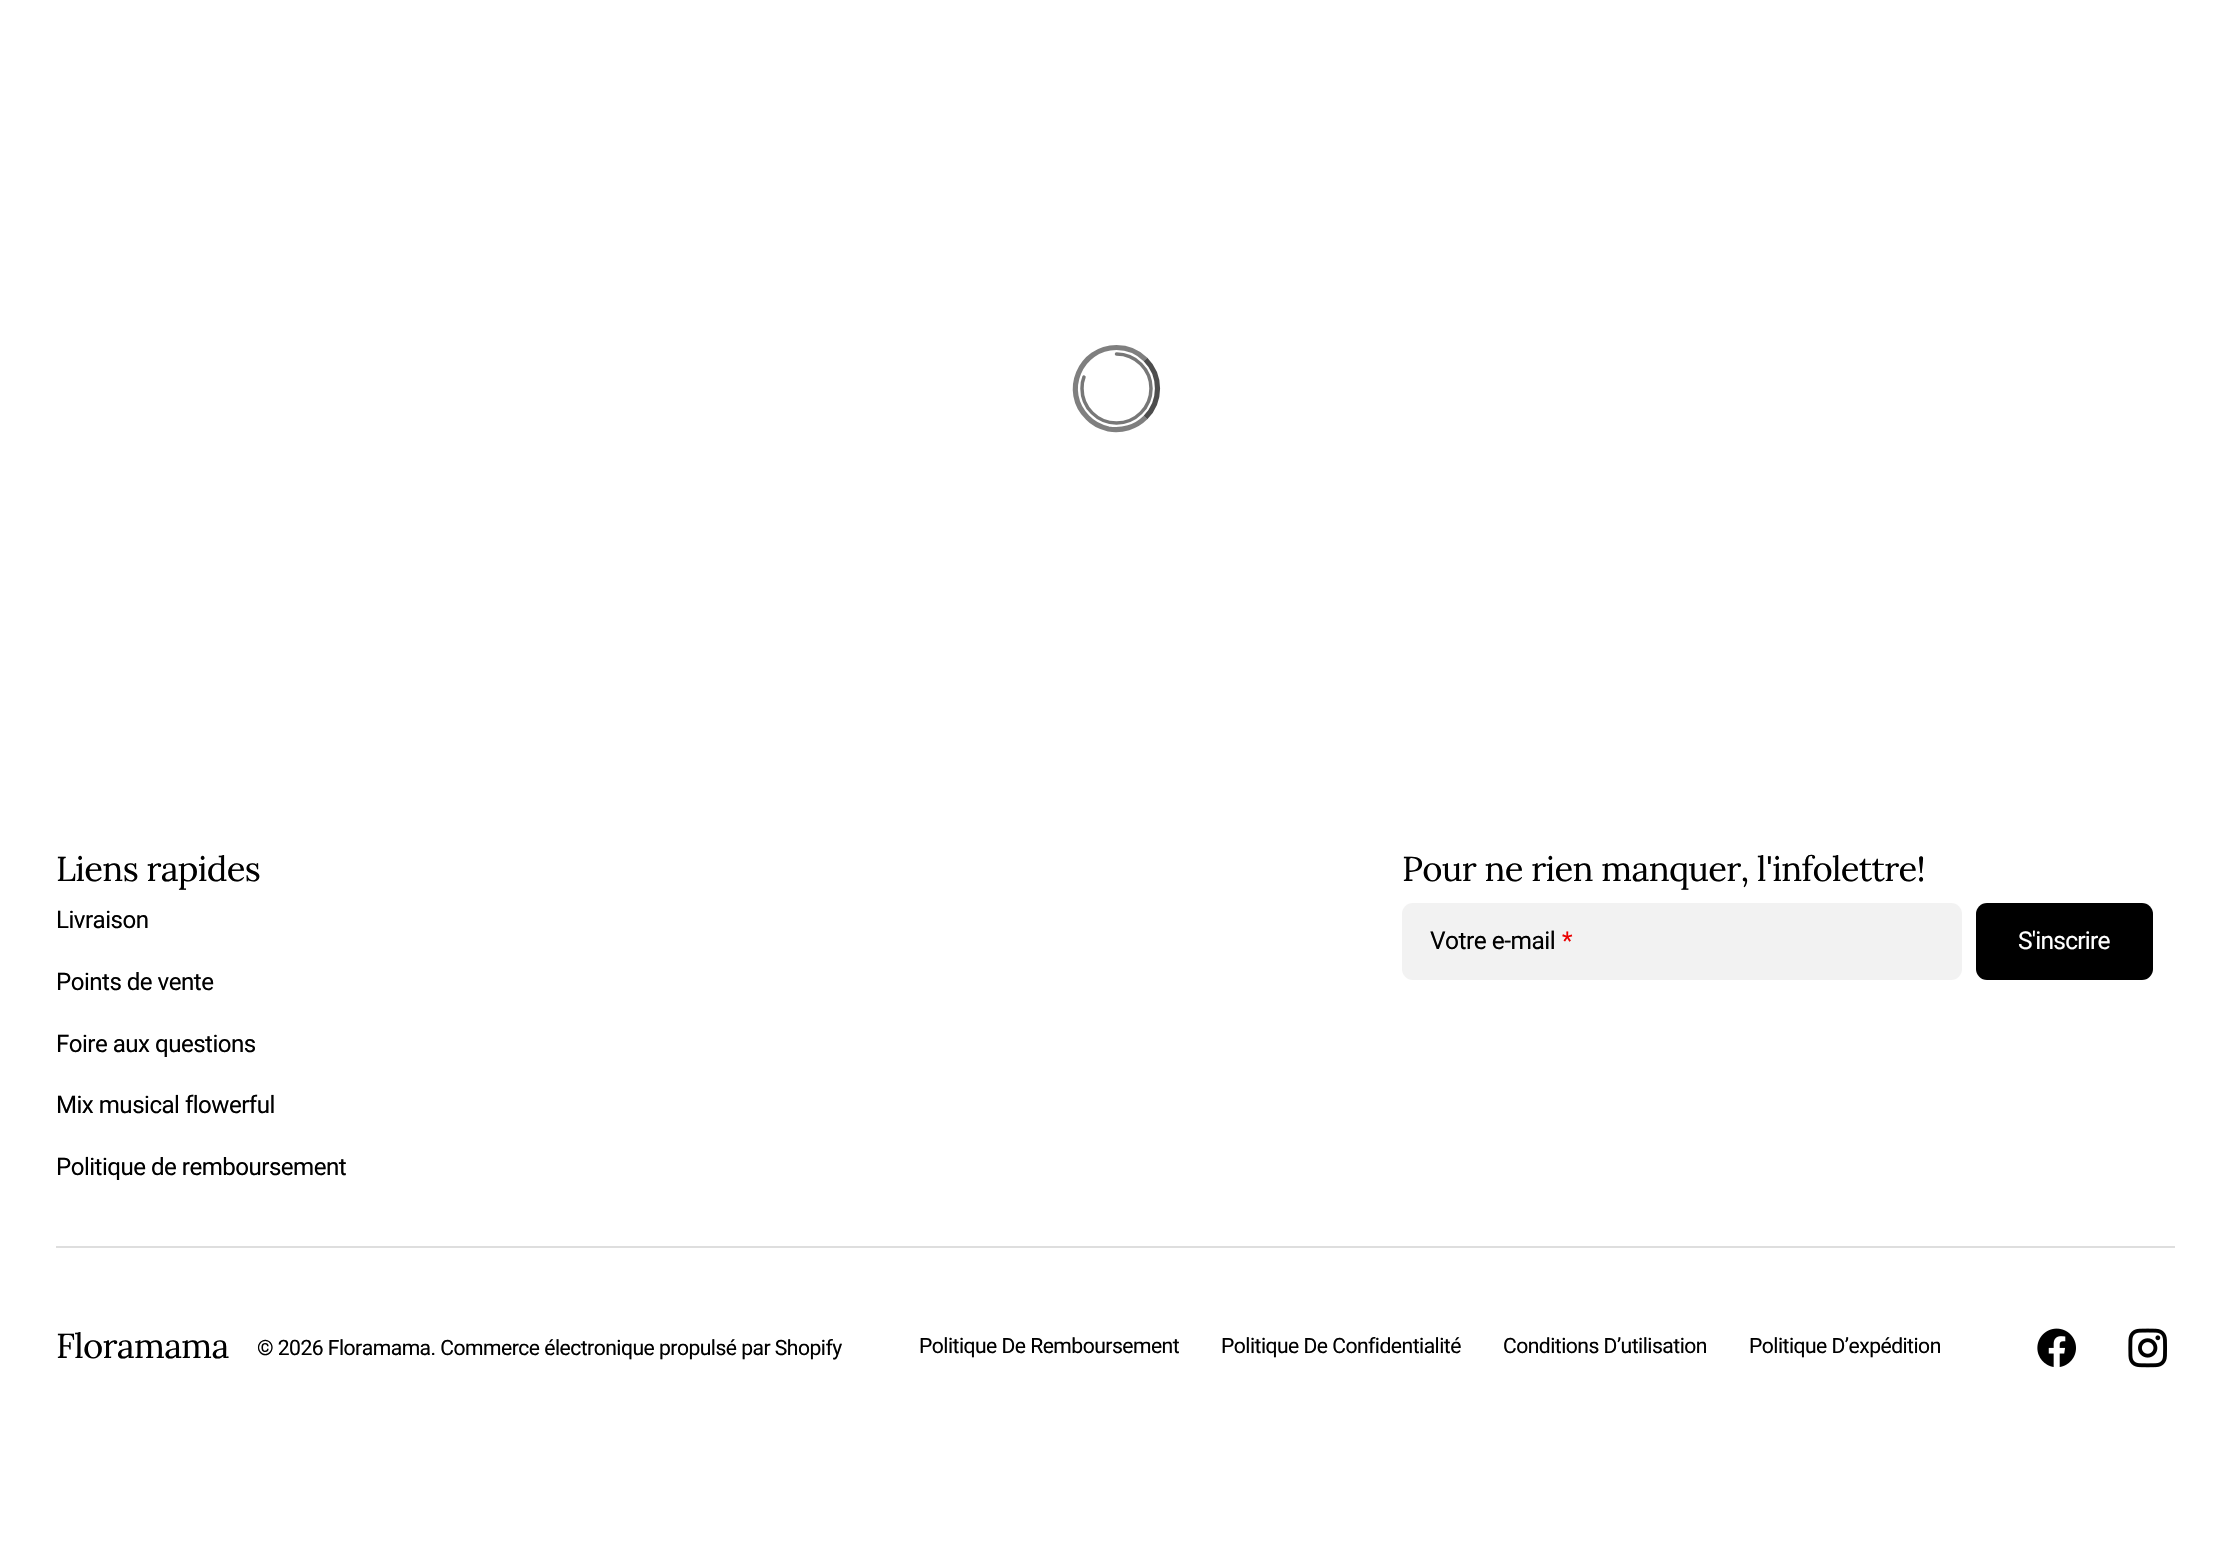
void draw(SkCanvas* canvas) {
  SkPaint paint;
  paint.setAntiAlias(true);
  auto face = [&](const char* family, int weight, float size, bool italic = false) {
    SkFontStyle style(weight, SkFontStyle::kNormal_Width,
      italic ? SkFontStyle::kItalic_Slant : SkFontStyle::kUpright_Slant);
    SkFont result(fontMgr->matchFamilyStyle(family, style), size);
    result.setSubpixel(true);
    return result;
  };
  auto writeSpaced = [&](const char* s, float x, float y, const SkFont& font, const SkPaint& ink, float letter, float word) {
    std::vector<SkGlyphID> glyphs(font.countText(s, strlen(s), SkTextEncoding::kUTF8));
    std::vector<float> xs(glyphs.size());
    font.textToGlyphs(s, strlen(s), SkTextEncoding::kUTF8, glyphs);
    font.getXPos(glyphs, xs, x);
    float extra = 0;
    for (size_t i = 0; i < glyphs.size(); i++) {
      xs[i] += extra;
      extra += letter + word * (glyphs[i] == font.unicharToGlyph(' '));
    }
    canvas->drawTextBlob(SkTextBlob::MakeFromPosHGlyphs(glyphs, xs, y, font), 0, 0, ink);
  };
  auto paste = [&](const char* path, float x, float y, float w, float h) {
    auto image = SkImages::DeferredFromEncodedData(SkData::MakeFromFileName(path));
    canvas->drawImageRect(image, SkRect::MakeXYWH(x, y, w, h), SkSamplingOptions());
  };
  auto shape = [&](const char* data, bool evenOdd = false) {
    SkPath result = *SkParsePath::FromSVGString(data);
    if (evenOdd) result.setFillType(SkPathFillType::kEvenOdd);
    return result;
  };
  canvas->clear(0xffffffff);
  paint.setStroke(true);
  paint.setStrokeWidth(5.2f);
  paint.setColor(0xff4d4d4d);
  canvas->drawPath(shape("M1145.5 359.5C1161.5 375.5 1161.5 401.5 1145.5 417.5"), paint);
  paint.setColor(0x80000000);
  canvas->drawPath(shape("M1145.5 417.5C1136 427 1122 431.5 1108.5 429C1100.5 427 1093 423.5 1087.5 417.5C1061.5 392 1080 347.5 1116.5 347.5C1127.5 347.5 1138 352 1145.5 359.5"), paint);
  paint.setStrokeWidth(3.5f);
  paint.setStrokeCap(SkPaint::kRound_Cap);
  paint.setColor(0xff777777);
  canvas->drawPath(shape("M1116.5 354C1135.5 354 1151 369.5 1151 388.5C1151 407.5 1135.5 423 1116.5 423C1097.5 423 1082 407.5 1082 388.5C1082 384.5 1082.5 380.5 1084 377"), paint);
  paint.setStroke(false);
  paint.setColor(0xfff2f2f2);
  canvas->drawRoundRect(SkRect::MakeXYWH(1402, 903, 560, 77), 11, 11, paint);
  paint.setColor(0xff000000);
  canvas->drawRoundRect(SkRect::MakeXYWH(1976, 903, 177, 77), 11, 11, paint);
  paint.setColor(0xffdedede);
  canvas->drawRect(SkRect::MakeXYWH(56, 1246, 2119, 2), paint);
  paste("img/1.png", 2037, 1328, 39, 39);
  paste("img/2.png", 2128, 1328, 39, 40);
  auto f0 = face("Lora", 400, 34.6f);
  paint.setColor(0xff000000);
  writeSpaced("Liens rapides", 56, 881, f0, paint, -0.7f, 0);
  auto f1 = face("Roboto", 400, 24.1f);
  {
    const struct { const char* s; float x, y; } items[] = {
      {"Livraison", 56, 928},
      {"Points de vente", 56, 990},
      {"Foire aux questions", 56, 1052},
      {"Mix musical flowerful", 56, 1113},
      {"Politique de remboursement", 56, 1175},
    };
    for (auto [s, x, y] : items) {
      writeSpaced(s, x, y, f1, paint, -0.52f, 0);
    }
  }
  writeSpaced("Pour ne rien manquer, l'infolettre!", 1402, 881, f0, paint, -0.7f, 0);
  auto f2 = face("Roboto", 400, 24.5f);
  writeSpaced("Votre e-mail", 1430, 949, f2, paint, -0.52f, 0);
  paint.setColor(0xffea0202);
  writeSpaced("*", 1562, 949, f2, paint, -0.52f, 0);
  paint.setColor(0xffffffff);
  writeSpaced("S'inscrire", 2018, 949, f2, paint, -0.75f, 0);
  paint.setColor(0xff000000);
  writeSpaced("Floramama", 56, 1358, f0, paint, -0.7f, 0);
  auto f3 = face("Roboto", 400, 21.1f);
  {
    const struct { const char* s; float x, y; } items[] = {
      {"© 2026 Floramama. Commerce électronique propulsé par Shopify", 257, 1355},
      {"Politique De Remboursement", 919, 1353},
      {"Politique De Confidentialité", 1221, 1353},
      {"Conditions D’utilisation", 1503, 1353},
      {"Politique D’expédition", 1749, 1353},
    };
    for (auto [s, x, y] : items) {
      writeSpaced(s, x, y, f3, paint, -0.52f, 0);
    }
  }
}
